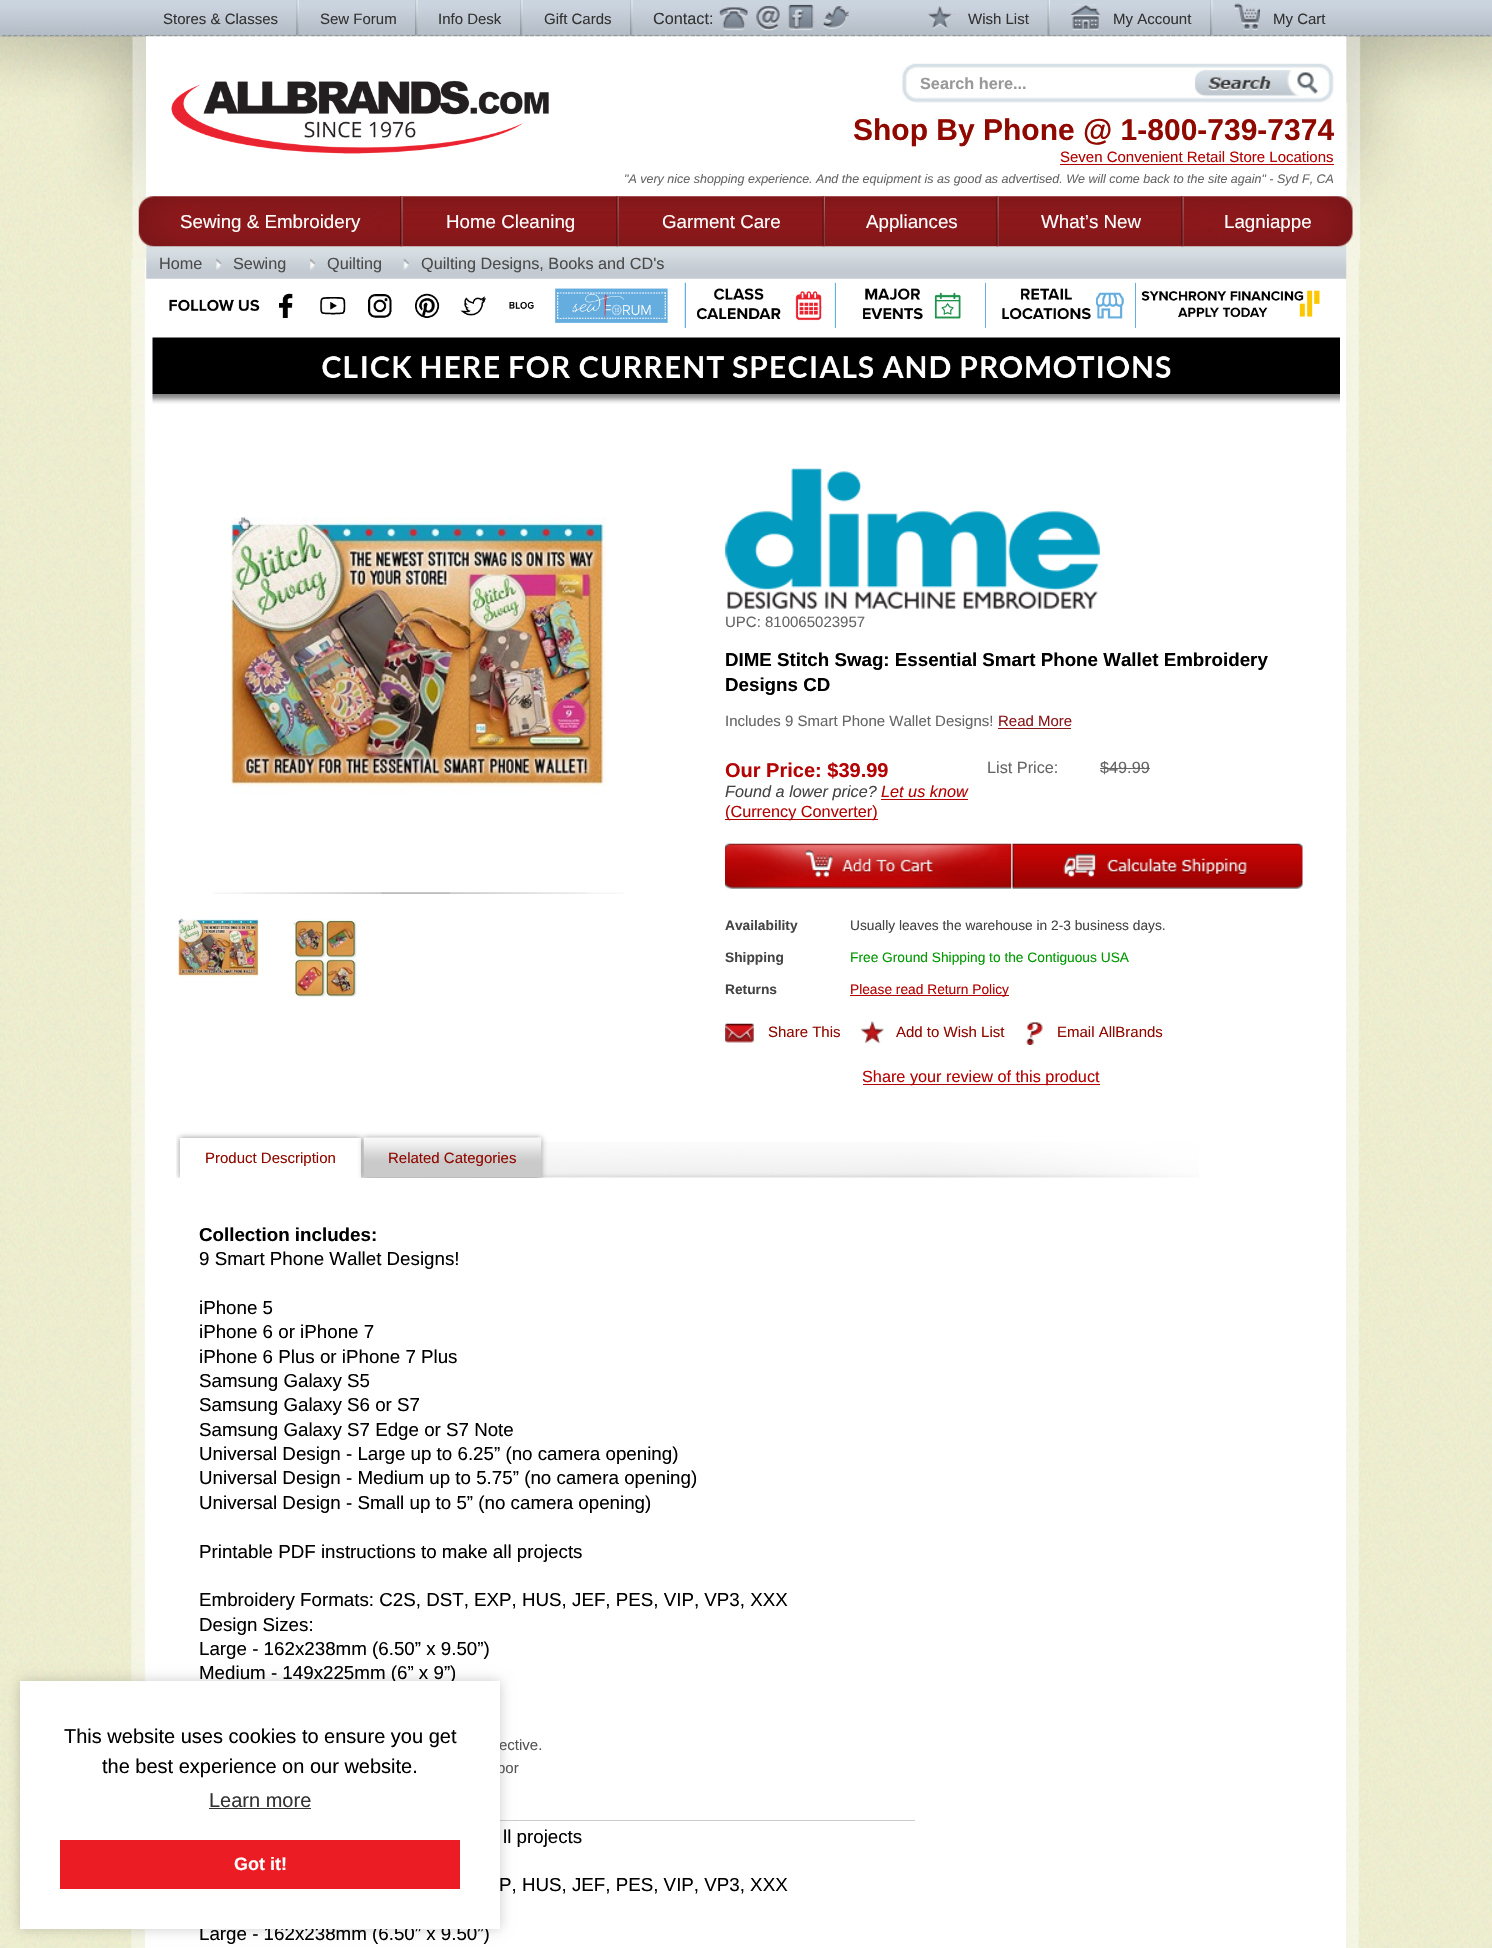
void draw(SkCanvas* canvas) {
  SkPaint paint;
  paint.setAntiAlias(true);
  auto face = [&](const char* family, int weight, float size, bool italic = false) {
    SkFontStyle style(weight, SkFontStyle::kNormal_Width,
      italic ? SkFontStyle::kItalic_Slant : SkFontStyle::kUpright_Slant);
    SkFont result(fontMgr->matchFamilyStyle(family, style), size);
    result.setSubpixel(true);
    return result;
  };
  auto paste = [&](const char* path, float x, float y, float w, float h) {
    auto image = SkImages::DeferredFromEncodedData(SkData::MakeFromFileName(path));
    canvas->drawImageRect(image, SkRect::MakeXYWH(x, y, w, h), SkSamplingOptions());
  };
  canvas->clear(0xffffffff);
  paste("img/15.png", 0, 258, 1492, 1690);
  paste("img/16.png", 131, 258, 1230, 1690);
  paste("img/17.png", 0, 36, 1492, 223);
  paint.setColor(0xffffffff);
  canvas->drawRect(SkRect::MakeXYWH(146, 36, 1200, 1912), paint);
  paste("img/1.png", 0, 0, 1492, 37);
  paste("img/2.png", 296, 0, 3, 35);
  paste("img/3.png", 415, 0, 3, 35);
  paste("img/4.png", 520, 0, 3, 35);
  paste("img/5.png", 630, 0, 3, 35);
  paste("img/6.png", 718, 7, 30, 24);
  paste("img/7.png", 756, 5, 24, 26);
  paste("img/8.png", 788, 4, 27, 27);
  paste("img/9.png", 823, 6, 26, 23);
  paste("img/10.png", 1047, 0, 3, 35);
  paste("img/11.png", 928, 6, 27, 23);
  paste("img/12.png", 1210, 0, 3, 35);
  paste("img/13.png", 1071, 4, 30, 26);
  paste("img/14.png", 1233, 3, 27, 27);
  paste("img/18.png", 171, 80, 378, 74);
  paste("img/19.png", 902, 63, 432, 40);
  paste("img/20.png", 1195, 70, 123, 27);
  paint.setColor(0xffb40303);
  canvas->drawRect(SkRect::MakeXYWH(1060, 164, 274, 1), paint);
  paste("img/30.png", 146, 241, 1201, 38);
  paste("img/21.png", 138, 196, 265, 51);
  paste("img/22.png", 400, 196, 3, 51);
  paste("img/23.png", 402, 196, 217, 51);
  paste("img/24.png", 616, 196, 3, 51);
  paste("img/25.png", 618, 196, 207, 51);
  paste("img/26.png", 822, 196, 3, 51);
  paste("img/27.png", 825, 196, 174, 51);
  paste("img/24.png", 996, 196, 3, 51);
  paste("img/28.png", 998, 196, 186, 51);
  paste("img/24.png", 1181, 196, 3, 51);
  paste("img/29.png", 1183, 196, 170, 51);
  paste("img/31.png", 216, 258, 6, 12);
  paste("img/32.png", 310, 258, 5, 12);
  paste("img/33.png", 403, 258, 6, 12);
  paste("img/34.png", 169, 282, 1151, 47);
  paste("img/35.png", 152, 337, 1188, 67);
  paste("img/36.png", 213, 892, 411, 2);
  paste("img/37.png", 243, 892, 344, 2);
  paste("img/38.png", 231, 517, 375, 277);
  paste("img/39.png", 178, 918, 81, 60);
  paste("img/40.png", 293, 918, 64, 79);
  paste("img/41.png", 725, 468, 375, 141);
  {
    const struct { float x, y, w, h; SkColor color; } items[] = {
      {998, 728, 73, 1, 0xff8a181b},
      {881, 799, 87, 1, 0xffb40303},
      {725, 819, 153, 1, 0xffb40303},
      {1100, 768, 50, 1, 0xff666666},
    };
    for (auto [x, y, w, h, color] : items) {
      paint.setColor(color);
      canvas->drawRect(SkRect::MakeXYWH(x, y, w, h), paint);
    }
  }
  paste("img/42.png", 725, 843, 287, 46);
  paste("img/43.png", 1012, 843, 291, 46);
  paint.setColor(0xffb40303);
  canvas->drawRect(SkRect::MakeXYWH(850, 995, 159, 1), paint);
  paste("img/44.png", 725, 1023, 29, 20);
  paste("img/45.png", 861, 1021, 23, 23);
  paste("img/46.png", 1026, 1022, 17, 23);
  canvas->drawRect(SkRect::MakeXYWH(863, 1084, 237, 1), paint);
  paste("img/47.png", 361, 1142, 838, 36);
  canvas->save();
  canvas->clipRect(SkRect::MakeXYWH(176, 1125, 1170, 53));
  paint.setColor(0x99444444);
  paint.setMaskFilter(SkMaskFilter::MakeBlur(kNormal_SkBlurStyle, 3));
  canvas->drawRect(SkRect::MakeXYWH(180, 1138, 181, 40), paint);
  paint.setMaskFilter(nullptr);
  canvas->restore();
  paint.setColor(0xffffffff);
  canvas->drawRect(SkRect::MakeXYWH(180, 1138, 181, 40), paint);
  canvas->save();
  canvas->clipRect(SkRect::MakeXYWH(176, 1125, 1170, 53));
  paint.setColor(0x99444444);
  paint.setMaskFilter(SkMaskFilter::MakeBlur(kNormal_SkBlurStyle, 3));
  canvas->drawRect(SkRect::MakeXYWH(364, 1138, 177, 40), paint);
  paint.setMaskFilter(nullptr);
  canvas->restore();
  paste("img/48.png", 363, 1137, 179, 41);
  paint.setColor(0xffcccccc);
  canvas->drawRect(SkRect::MakeXYWH(500, 1820, 415, 1), paint);
  paint.setColor(0x33000000);
  paint.setMaskFilter(SkMaskFilter::MakeBlur(kNormal_SkBlurStyle, 6));
  canvas->drawRect(SkRect::MakeXYWH(20, 1681, 480, 248), paint);
  paint.setMaskFilter(nullptr);
  auto f0 = face("Liberation Sans", 400, 15);
  paint.setColor(0xff333333);
  {
    const struct { const char* s; float x, y; } items[] = {
      {"Stores & Classes", 163, 24},
      {"Sew Forum", 320, 24},
      {"Info Desk", 438, 24},
      {"Gift Cards", 544, 24},
    };
    for (auto [s, x, y] : items) {
      canvas->drawString(s, x, y, f0, paint);
    }
  }
  auto f1 = face("Liberation Sans", 400, 16.25f);
  canvas->drawString("Contact:", 653, 24, f1, paint);
  {
    const struct { const char* s; float x, y; } items[] = {
      {"Wish List", 968, 24},
      {"My Account", 1113, 24},
      {"My Cart", 1273, 24},
    };
    for (auto [s, x, y] : items) {
      canvas->drawString(s, x, y, f0, paint);
    }
  }
  auto f2 = face("Liberation Sans", 700, 16.25f);
  paint.setColor(0xff999999);
  canvas->drawString("Search here...", 920, 89, f2, paint);
  auto f3 = face("Liberation Sans", 700, 30);
  paint.setColor(0xff900900);
  canvas->drawString("Shop By Phone @ 1-800-739-7374", 853, 140, f3, paint);
  paint.setColor(0xffb40303);
  canvas->drawString("Seven Convenient Retail Store Locations", 1060, 162, f0, paint);
  auto f4 = face("Liberation Sans", 400, 12.5f, true);
  paint.setColor(0xff666666);
  canvas->drawString("\"A very nice shopping experience. And the equipment is as good as advertised. We will come back to the site again\" - Syd F, CA", 624, 183, f4, paint);
  auto f5 = face("Liberation Sans", 400, 18.75f);
  paint.setColor(0xffffffff);
  {
    const struct { const char* s; float x, y; } items[] = {
      {"Sewing & Embroidery", 180, 228},
      {"Home Cleaning", 446, 228},
      {"Garment Care", 662, 228},
      {"Appliances", 866, 228},
      {"What’s New", 1041, 228},
      {"Lagniappe", 1224, 228},
    };
    for (auto [s, x, y] : items) {
      canvas->drawString(s, x, y, f5, paint);
    }
  }
  paint.setColor(0xff4b4b4b);
  {
    const struct { const char* s; float x, y; } items[] = {
      {"Home", 159, 269},
      {"Sewing", 233, 269},
      {"Quilting", 327, 269},
      {"Quilting Designs, Books and CD's", 421, 269},
    };
    for (auto [s, x, y] : items) {
      canvas->drawString(s, x, y, f1, paint);
    }
  }
  paint.setColor(0xff666666);
  canvas->drawString("UPC: 810065023957", 725, 627, f0, paint);
  auto f6 = face("Liberation Sans", 700, 18.75f);
  paint.setColor(0xff000000);
  canvas->drawString("DIME Stitch Swag: Essential Smart Phone Wallet Embroidery", 725, 666, f6, paint);
  canvas->drawString("Designs CD", 725, 691, f6, paint);
  paint.setColor(0xff666666);
  canvas->drawString("Includes 9 Smart Phone Wallet Designs!", 725, 726, f0, paint);
  paint.setColor(0xff8a181b);
  canvas->drawString("Read More", 998, 726, f0, paint);
  auto f7 = face("Liberation Sans", 700, 20);
  paint.setColor(0xffb40303);
  canvas->drawString("Our Price: $39.99", 725, 777, f7, paint);
  auto f8 = face("Liberation Sans", 400, 16.25f, true);
  paint.setColor(0xff444444);
  canvas->drawString("Found a lower price?", 725, 797, f8, paint);
  paint.setColor(0xffb40303);
  canvas->drawString("Let us know", 881, 797, f8, paint);
  canvas->drawString("(Currency Converter)", 725, 817, f1, paint);
  paint.setColor(0xff666666);
  canvas->drawString("List Price:", 987, 773, f1, paint);
  canvas->drawString("$49.99", 1100, 773, f1, paint);
  auto f9 = face("Liberation Sans", 700, 13.75f);
  paint.setColor(0xff444444);
  canvas->drawString("Availability", 725, 930, f9, paint);
  auto f10 = face("Liberation Sans", 400, 13.75f);
  canvas->drawString("Usually leaves the warehouse in 2-3 business days.", 850, 930, f10, paint);
  canvas->drawString("Shipping", 725, 962, f9, paint);
  paint.setColor(0xff009900);
  canvas->drawString("Free Ground Shipping to the Contiguous USA", 850, 962, f10, paint);
  paint.setColor(0xff444444);
  canvas->drawString("Returns", 725, 994, f9, paint);
  paint.setColor(0xffb40303);
  canvas->drawString("Please read Return Policy", 850, 994, f10, paint);
  paint.setColor(0xff900900);
  {
    const struct { const char* s; float x, y; } items[] = {
      {"Share This", 768, 1037},
      {"Add to Wish List", 896, 1037},
      {"Email AllBrands", 1057, 1037},
    };
    for (auto [s, x, y] : items) {
      canvas->drawString(s, x, y, f0, paint);
    }
  }
  paint.setColor(0xffb40303);
  canvas->drawString("Share your review of this product", 862, 1082, f1, paint);
  paint.setColor(0xff900900);
  canvas->drawString("Product Description", 205, 1163, f0, paint);
  canvas->drawString("Related Categories", 388, 1163, f0, paint);
  paint.setColor(0xff000000);
  canvas->drawString("Collection includes:", 199, 1241, f6, paint);
  {
    const struct { const char* s; float x, y; } items[] = {
      {"9 Smart Phone Wallet Designs!", 199, 1265},
      {"iPhone 5", 199, 1314},
      {"iPhone 6 or iPhone 7", 199, 1338},
      {"iPhone 6 Plus or iPhone 7 Plus", 199, 1363},
      {"Samsung Galaxy S5", 199, 1387},
      {"Samsung Galaxy S6 or S7", 199, 1411},
      {"Samsung Galaxy S7 Edge or S7 Note", 199, 1436},
      {"Universal Design - Large up to 6.25” (no camera opening)", 199, 1460},
      {"Universal Design - Medium up to 5.75” (no camera opening)", 199, 1484},
      {"Universal Design - Small up to 5” (no camera opening)", 199, 1509},
      {"Printable PDF instructions to make all projects", 199, 1558},
      {"Embroidery Formats: C2S, DST, EXP, HUS, JEF, PES, VIP, VP3, XXX", 199, 1606},
      {"Design Sizes:", 199, 1631},
      {"Large - 162x238mm (6.50” x 9.50”)", 199, 1655},
      {"Medium - 149x225mm (6” x 9”)", 199, 1679},
    };
    for (auto [s, x, y] : items) {
      canvas->drawString(s, x, y, f5, paint);
    }
  }
  paint.setColor(0xff555555);
  canvas->drawString("ective.", 499, 1750, f0, paint);
  canvas->drawString("bor", 497, 1773, f0, paint);
  paint.setColor(0xff000000);
  {
    const struct { const char* s; float x, y; } items[] = {
      {"ll projects", 503, 1843},
      {"P, HUS, JEF, PES, VIP, VP3, XXX", 499, 1891},
      {"Large - 162x238mm (6.50” x 9.50”)", 199, 1940},
    };
    for (auto [s, x, y] : items) {
      canvas->drawString(s, x, y, f5, paint);
    }
  }
  paint.setColor(0xffffffff);
  canvas->drawRect(SkRect::MakeXYWH(20, 1681, 480, 248), paint);
  auto f11 = face("Liberation Sans", 400, 20);
  paint.setColor(0xff000000);
  canvas->drawString("This website uses cookies to ensure you get", 64, 1743, f11, paint);
  canvas->drawString("the best experience on our website.", 102, 1773, f11, paint);
  paint.setColor(0xff333333);
  canvas->drawString("Learn more", 209, 1807, f11, paint);
  canvas->drawRect(SkRect::MakeXYWH(209, 1808, 102, 1), paint);
  paint.setColor(0xffec1c24);
  canvas->drawRect(SkRect::MakeXYWH(60, 1840, 400, 49), paint);
  auto f12 = face("Liberation Sans", 700, 18);
  paint.setColor(0xffffffff);
  canvas->drawString("Got it!", 234, 1870, f12, paint);
}
